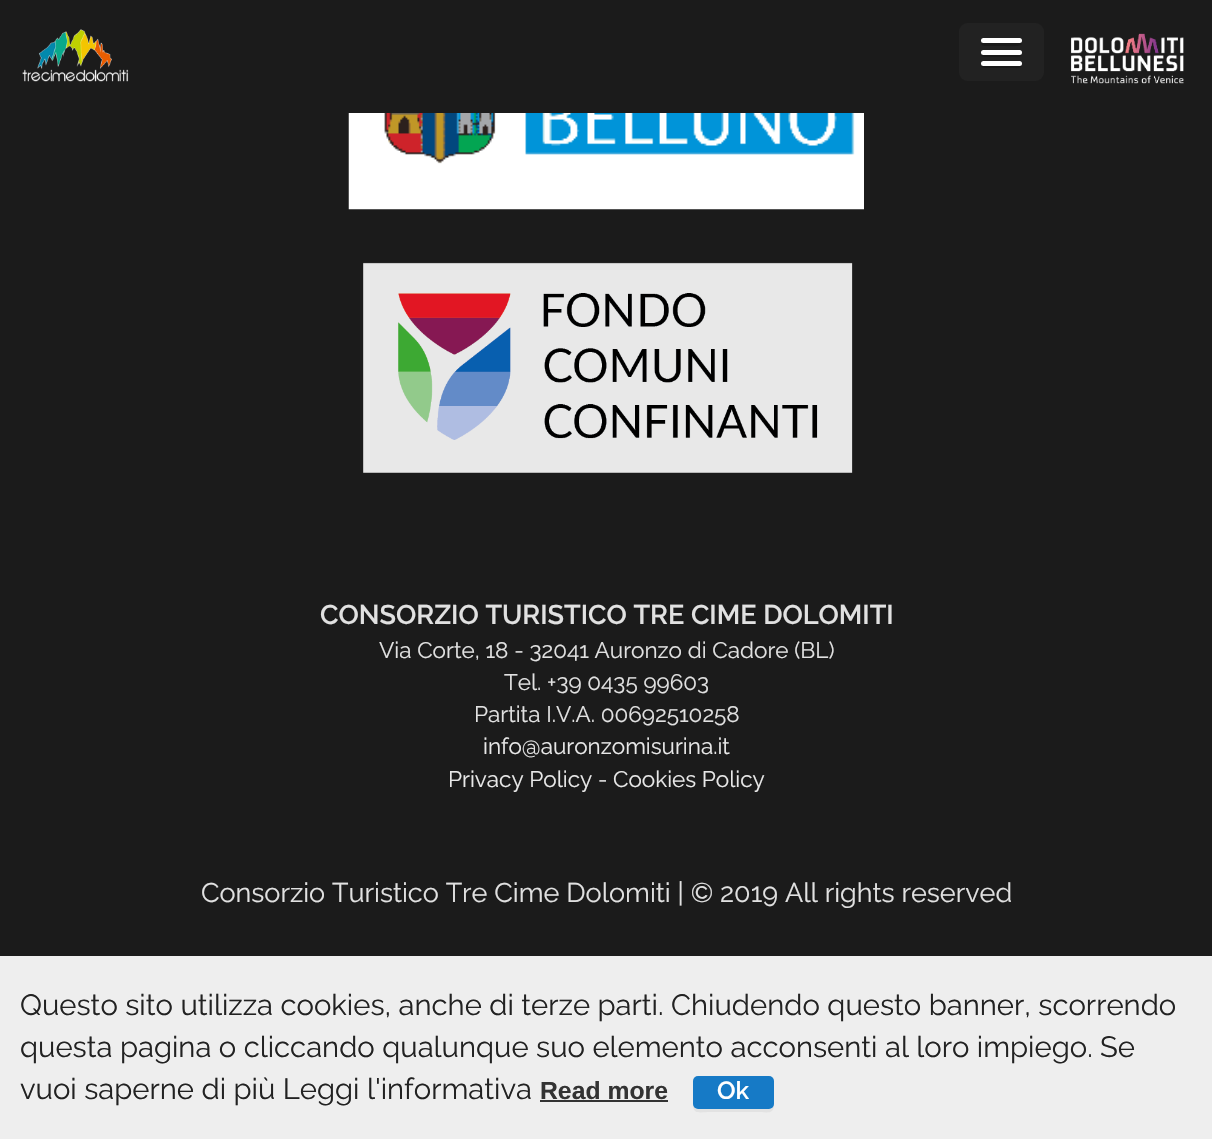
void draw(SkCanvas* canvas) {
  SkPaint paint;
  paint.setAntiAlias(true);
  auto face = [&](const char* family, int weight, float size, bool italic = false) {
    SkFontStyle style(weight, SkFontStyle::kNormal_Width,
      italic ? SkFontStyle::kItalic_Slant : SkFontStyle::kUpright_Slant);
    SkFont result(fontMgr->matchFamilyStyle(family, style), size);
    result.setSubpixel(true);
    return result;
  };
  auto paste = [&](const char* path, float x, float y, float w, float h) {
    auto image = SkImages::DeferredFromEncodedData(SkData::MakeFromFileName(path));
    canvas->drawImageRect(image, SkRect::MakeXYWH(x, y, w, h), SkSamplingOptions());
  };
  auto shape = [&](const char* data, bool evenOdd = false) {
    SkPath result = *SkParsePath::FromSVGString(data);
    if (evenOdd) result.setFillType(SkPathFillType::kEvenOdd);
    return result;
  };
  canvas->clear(0xff1b1b1b);
  paste("img/1.png", 22, 29, 107, 53);
  paint.setColor(0xff222222);
  canvas->drawRoundRect(SkRect::MakeXYWH(959, 23, 85, 58), 9, 9, paint);
  paint.setColor(0xff1a1a1a);
  canvas->drawPath(shape("M982 42C978 47 989 46 990 46H1002C1005 46 1019 47 1021 45C1022 44 1022 43 1021 42L1020 43H983Z"), paint);
  paint.setColor(0xffffffff);
  canvas->drawRoundRect(SkRect::MakeXYWH(981, 38, 41, 5), 2.5f, 2.5f, paint);
  paint.setColor(0xff1a1a1a);
  canvas->drawPath(shape("M981 53C978 58 989 57 990 57H1014C1015 57 1021 58 1022 55L1021 53L1020 54H983Z"), paint);
  paint.setColor(0xffffffff);
  canvas->drawRoundRect(SkRect::MakeXYWH(981, 50, 41, 5), 2.5f, 2.5f, paint);
  paint.setColor(0xff1a1a1a);
  canvas->drawPath(shape("M981 64C978 69 989 68 990 68H1014C1015 68 1021 69 1022 66L1021 64L1020 65H983Z"), paint);
  paint.setColor(0xffffffff);
  canvas->drawRoundRect(SkRect::MakeXYWH(981, 61, 41, 5), 2.5f, 2.5f, paint);
  paste("img/2.png", 1071, 33, 113, 51);
  paste("img/3.png", 348, 113, 516, 97);
  paste("img/4.png", 363, 262, 490, 211);
  paint.setColor(0xffeeeeee);
  canvas->drawRect(SkRect::MakeXYWH(0, 956, 1212, 183), paint);
  paint.setColor(0xff333333);
  canvas->drawRect(SkRect::MakeXYWH(540, 1100, 128, 2), paint);
  paint.setColor(0xffe2e2e2);
  canvas->drawPath(shape("M693 1105C693 1115 701 1112 710 1112H757C766 1112 774 1115 774 1105C774 1107 772 1109 770 1109H698C695 1109 693 1107 693 1105Z"), paint);
  paint.setColor(0xff167ac6);
  canvas->drawRoundRect(SkRect::MakeXYWH(693, 1076, 81, 33), 5, 5, paint);
  auto f0 = face("Raleway", 600, 27);
  paint.setColor(0xffe1e1e1);
  canvas->drawString("CONSORZIO TURISTICO TRE CIME DOLOMITI", 320, 624, f0, paint);
  auto f1 = face("Raleway", 400, 22.5f);
  {
    const struct { const char* s; float x, y; } items[] = {
      {"Via Corte, 18 - 32041 Auronzo di Cadore (BL)", 379, 658},
      {"Tel. +39 0435 99603", 504, 690},
      {"Partita I.V.A. 00692510258", 474, 722},
    };
    for (auto [s, x, y] : items) {
      canvas->drawString(s, x, y, f1, paint);
    }
  }
  paint.setColor(0xffe8e8e8);
  canvas->drawString("info@auronzomisurina.it", 483, 754, f1, paint);
  canvas->drawString("Privacy Policy", 448, 787, f1, paint);
  paint.setColor(0xffe1e1e1);
  canvas->drawString("-", 598, 787, f1, paint);
  paint.setColor(0xffe8e8e8);
  canvas->drawString("Cookies Policy", 613, 787, f1, paint);
  auto f2 = face("Raleway", 400, 27);
  paint.setColor(0xffe1e1e1);
  canvas->drawString("Consorzio Turistico Tre Cime Dolomiti | © 2019 All rights reserved", 201, 902, f2, paint);
  auto f3 = face("Raleway", 400, 29.25f);
  paint.setColor(0xff222222);
  {
    const struct { const char* s; float x, y; } items[] = {
      {"Questo sito utilizza cookies, anche di terze parti. Chiudendo questo banner, scorrendo", 20, 1015},
      {"questa pagina o cliccando qualunque suo elemento acconsenti al loro impiego. Se", 20, 1057},
      {"vuoi saperne di più Leggi l'informativa", 20, 1099},
    };
    for (auto [s, x, y] : items) {
      canvas->drawString(s, x, y, f3, paint);
    }
  }
  auto f4 = face("Liberation Sans", 700, 24.75f);
  paint.setColor(0xff333333);
  canvas->drawString("Read more", 540, 1099, f4, paint);
  auto f5 = face("Raleway", 600, 24.75f);
  paint.setColor(0xffffffff);
  canvas->drawString("Ok", 717, 1099, f5, paint);
}
